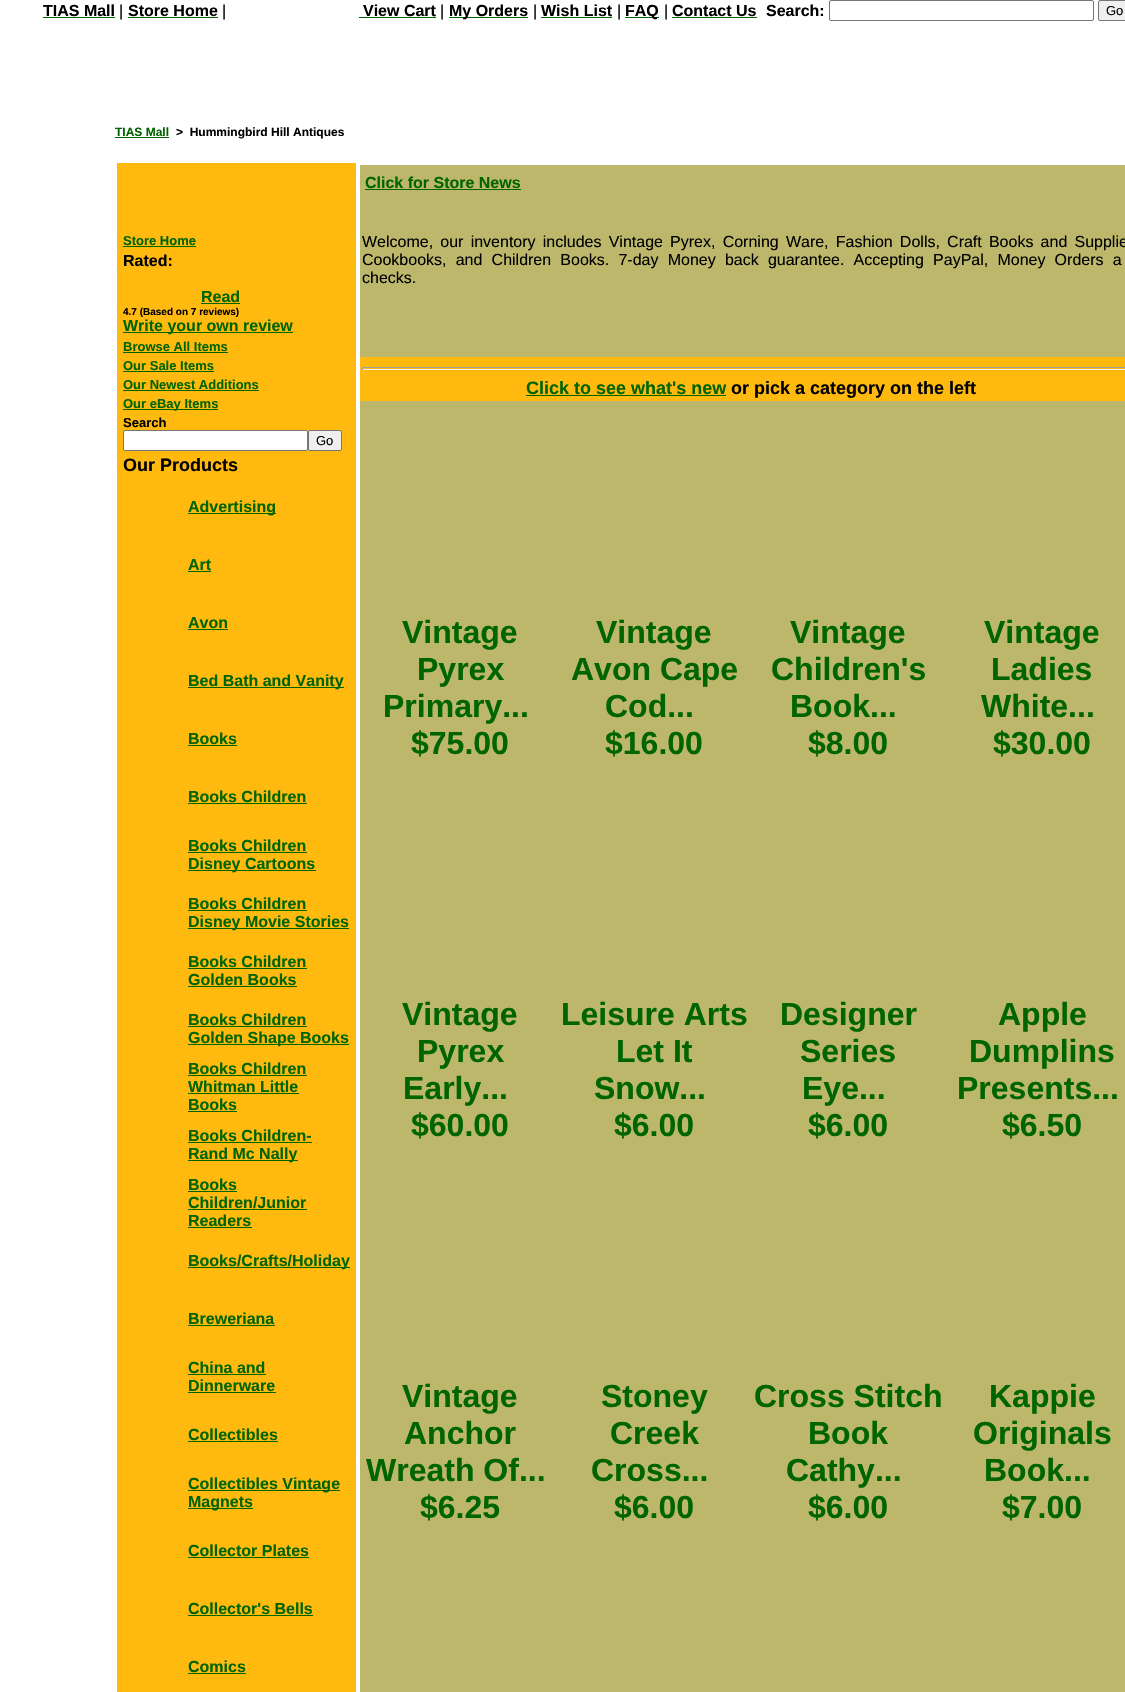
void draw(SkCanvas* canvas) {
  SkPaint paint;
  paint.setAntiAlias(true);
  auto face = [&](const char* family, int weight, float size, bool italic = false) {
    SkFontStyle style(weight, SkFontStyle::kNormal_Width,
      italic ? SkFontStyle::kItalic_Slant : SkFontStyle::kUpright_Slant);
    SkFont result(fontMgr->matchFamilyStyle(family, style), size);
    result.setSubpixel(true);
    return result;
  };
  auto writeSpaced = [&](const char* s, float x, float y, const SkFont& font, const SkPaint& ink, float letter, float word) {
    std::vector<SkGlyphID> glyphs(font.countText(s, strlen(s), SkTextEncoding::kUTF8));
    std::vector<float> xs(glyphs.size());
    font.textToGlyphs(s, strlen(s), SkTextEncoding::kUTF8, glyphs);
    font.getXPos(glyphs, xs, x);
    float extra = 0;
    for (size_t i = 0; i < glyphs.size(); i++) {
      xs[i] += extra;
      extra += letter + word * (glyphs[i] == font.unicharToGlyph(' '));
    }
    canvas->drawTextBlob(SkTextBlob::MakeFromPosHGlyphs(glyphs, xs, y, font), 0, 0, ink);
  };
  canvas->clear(0xffffffff);
  {
    const struct { float x, y, w, h; SkColor color; } items[] = {
      {43, 17, 72, 1, 0xff006400},
      {128, 17, 90, 1, 0xff006400},
      {359, 17, 77, 1, 0xff006400},
      {449, 17, 79, 1, 0xff006400},
      {541, 17, 71, 1, 0xff006400},
      {625, 17, 34, 1, 0xff006400},
      {672, 17, 85, 1, 0xff006400},
    };
    for (auto [x, y, w, h, color] : items) {
      paint.setColor(color);
      canvas->drawRect(SkRect::MakeXYWH(x, y, w, h), paint);
    }
  }
  paint.setStroke(true);
  paint.setStrokeWidth(1);
  paint.setColor(0xff767676);
  canvas->drawRoundRect(SkRect::MakeXYWH(829.5f, 0.5f, 264, 20), 1.5f, 1.5f, paint);
  paint.setStroke(false);
  paint.setColor(0xffefefef);
  canvas->drawRoundRect(SkRect::MakeXYWH(1098.5f, 0.5f, 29, 20), 1.5f, 1.5f, paint);
  paint.setStroke(true);
  paint.setColor(0xff767676);
  canvas->drawRoundRect(SkRect::MakeXYWH(1098.5f, 0.5f, 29, 20), 1.5f, 1.5f, paint);
  paint.setStroke(false);
  {
    const struct { float x, y, w, h; SkColor color; } items[] = {
      {115, 137, 54, 1, 0xff006400},
      {117, 163, 239, 1529, 0xffffb90f},
      {123, 246, 73, 1, 0xff006400},
      {201, 303, 39, 1, 0xff006400},
      {123, 332, 170, 1, 0xff006400},
      {123, 352, 105, 1, 0xff006400},
      {123, 371, 91, 1, 0xff006400},
      {123, 390, 136, 1, 0xff006400},
      {123, 409, 95, 1, 0xff006400},
    };
    for (auto [x, y, w, h, color] : items) {
      paint.setColor(color);
      canvas->drawRect(SkRect::MakeXYWH(x, y, w, h), paint);
    }
  }
  paint.setColor(0xffffffff);
  canvas->drawRoundRect(SkRect::MakeXYWH(123.5f, 430.5f, 184, 20), 1.5f, 1.5f, paint);
  paint.setStroke(true);
  paint.setColor(0xff767676);
  canvas->drawRoundRect(SkRect::MakeXYWH(123.5f, 430.5f, 184, 20), 1.5f, 1.5f, paint);
  paint.setStroke(false);
  paint.setColor(0xffefefef);
  canvas->drawRoundRect(SkRect::MakeXYWH(308.5f, 430.5f, 33, 20), 1.5f, 1.5f, paint);
  paint.setStroke(true);
  paint.setColor(0xff767676);
  canvas->drawRoundRect(SkRect::MakeXYWH(308.5f, 430.5f, 33, 20), 1.5f, 1.5f, paint);
  paint.setStroke(false);
  {
    const struct { float x, y, w, h; SkColor color; } items[] = {
      {188, 513, 88, 1, 0xff006400},
      {188, 571, 23, 1, 0xff006400},
      {188, 629, 40, 1, 0xff006400},
      {188, 687, 156, 1, 0xff006400},
      {188, 745, 49, 1, 0xff006400},
      {188, 803, 119, 1, 0xff006400},
      {188, 852, 119, 1, 0xff006400},
      {188, 870, 128, 1, 0xff006400},
      {188, 910, 119, 1, 0xff006400},
      {188, 928, 161, 1, 0xff006400},
      {188, 968, 119, 1, 0xff006400},
      {188, 986, 109, 1, 0xff006400},
      {188, 1026, 119, 1, 0xff006400},
      {188, 1044, 161, 1, 0xff006400},
      {188, 1075, 119, 1, 0xff006400},
      {188, 1093, 111, 1, 0xff006400},
      {188, 1111, 49, 1, 0xff006400},
      {188, 1142, 124, 1, 0xff006400},
      {188, 1160, 110, 1, 0xff006400},
      {188, 1191, 49, 1, 0xff006400},
      {188, 1209, 119, 1, 0xff006400},
      {188, 1227, 64, 1, 0xff006400},
      {188, 1267, 162, 1, 0xff006400},
      {188, 1325, 87, 1, 0xff006400},
      {188, 1374, 78, 1, 0xff006400},
      {188, 1392, 88, 1, 0xff006400},
      {188, 1441, 90, 1, 0xff006400},
      {188, 1490, 152, 1, 0xff006400},
      {188, 1508, 65, 1, 0xff006400},
      {188, 1557, 121, 1, 0xff006400},
      {188, 1615, 125, 1, 0xff006400},
      {188, 1673, 58, 1, 0xff006400},
      {360, 165, 765, 1527, 0xffbdb76b},
      {365, 189, 156, 1, 0xff006400},
      {360, 357, 765, 44, 0xffffb90f},
      {362, 367, 763, 1, 0xff9f9f9f},
      {362, 369, 763, 1, 0xffeeeeee},
      {362, 367, 1, 3, 0xff9f9f9f},
      {526, 395, 200, 1, 0xff006400},
    };
    for (auto [x, y, w, h, color] : items) {
      paint.setColor(color);
      canvas->drawRect(SkRect::MakeXYWH(x, y, w, h), paint);
    }
  }
  auto f0 = face("Liberation Sans", 700, 16);
  paint.setColor(0xff000000);
  canvas->drawString("TIAS Mall", 43, 16, f0, paint);
  auto f1 = face("Liberation Sans", 400, 16);
  canvas->drawString("|", 119, 16, f1, paint);
  canvas->drawString("Store Home", 128, 16, f0, paint);
  canvas->drawString("|", 222, 16, f1, paint);
  canvas->drawString("View Cart", 363, 16, f0, paint);
  canvas->drawString("|", 440, 16, f1, paint);
  canvas->drawString("My Orders", 449, 16, f0, paint);
  canvas->drawString("|", 533, 16, f1, paint);
  canvas->drawString("Wish List", 541, 16, f0, paint);
  canvas->drawString("|", 617, 16, f1, paint);
  canvas->drawString("FAQ", 625, 16, f0, paint);
  canvas->drawString("|", 664, 16, f1, paint);
  canvas->drawString("Contact Us", 672, 16, f0, paint);
  canvas->drawString("Search:", 766, 16, f0, paint);
  auto f2 = face("Liberation Sans", 400, 13);
  canvas->drawString("Go", 1106, 15, f2, paint);
  auto f3 = face("Liberation Sans", 700, 12);
  paint.setColor(0xff006400);
  canvas->drawString("TIAS Mall", 115, 136, f3, paint);
  paint.setColor(0xff000000);
  canvas->drawString(">  Hummingbird Hill Antiques", 176, 136, f3, paint);
  auto f4 = face("Liberation Sans", 700, 13);
  paint.setColor(0xff006400);
  canvas->drawString("Store Home", 123, 245, f4, paint);
  paint.setColor(0xff000000);
  canvas->drawString("Rated:", 123, 266, f0, paint);
  paint.setColor(0xff006400);
  canvas->drawString("Read", 201, 302, f0, paint);
  auto f5 = face("Liberation Sans", 700, 10);
  paint.setColor(0xff000000);
  canvas->drawString("4.7 (Based on 7 reviews)", 123, 315, f5, paint);
  paint.setColor(0xff006400);
  canvas->drawString("Write your own review", 123, 331, f0, paint);
  {
    const struct { const char* s; float x, y; } items[] = {
      {"Browse All Items", 123, 351},
      {"Our Sale Items", 123, 370},
      {"Our Newest Additions", 123, 389},
      {"Our eBay Items", 123, 408},
    };
    for (auto [s, x, y] : items) {
      canvas->drawString(s, x, y, f4, paint);
    }
  }
  paint.setColor(0xff000000);
  canvas->drawString("Search", 123, 427, f4, paint);
  canvas->drawString("Go", 316, 445, f2, paint);
  auto f6 = face("Liberation Sans", 700, 18);
  canvas->drawString("Our Products", 123, 471, f6, paint);
  paint.setColor(0xff006400);
  {
    const struct { const char* s; float x, y; } items[] = {
      {"Advertising", 188, 512},
      {"Art", 188, 570},
      {"Avon", 188, 628},
      {"Bed Bath and Vanity", 188, 686},
      {"Books", 188, 744},
      {"Books Children", 188, 802},
      {"Books Children", 188, 851},
      {"Disney Cartoons", 188, 869},
      {"Books Children", 188, 909},
      {"Disney Movie Stories", 188, 927},
      {"Books Children", 188, 967},
      {"Golden Books", 188, 985},
      {"Books Children", 188, 1025},
      {"Golden Shape Books", 188, 1043},
      {"Books Children", 188, 1074},
      {"Whitman Little", 188, 1092},
      {"Books", 188, 1110},
      {"Books Children-", 188, 1141},
      {"Rand Mc Nally", 188, 1159},
      {"Books", 188, 1190},
      {"Children/Junior", 188, 1208},
      {"Readers", 188, 1226},
      {"Books/Crafts/Holiday", 188, 1266},
      {"Breweriana", 188, 1324},
      {"China and", 188, 1373},
      {"Dinnerware", 188, 1391},
      {"Collectibles", 188, 1440},
      {"Collectibles Vintage", 188, 1489},
      {"Magnets", 188, 1507},
      {"Collector Plates", 188, 1556},
      {"Collector's Bells", 188, 1614},
      {"Comics", 188, 1672},
      {"Click for Store News", 365, 188},
    };
    for (auto [s, x, y] : items) {
      canvas->drawString(s, x, y, f0, paint);
    }
  }
  paint.setColor(0xff000000);
  writeSpaced("Welcome, our inventory includes Vintage Pyrex, Corning Ware, Fashion Dolls, Craft Books and Supplie", 362, 247, f1, paint, 0, 2.75f);
  writeSpaced("Cookbooks, and Children Books. 7-day Money back guarantee. Accepting PayPal, Money Orders a", 362, 265, f1, paint, 0, 4.75f);
  canvas->drawString("checks.", 362, 283, f1, paint);
  paint.setColor(0xff006400);
  canvas->drawString("Click to see what's new", 526, 394, f6, paint);
  paint.setColor(0xff000000);
  canvas->drawString("or pick a category on the left", 731, 394, f6, paint);
  auto f7 = face("Liberation Sans", 700, 32);
  paint.setColor(0xff006400);
  {
    const struct { const char* s; float x, y; } items[] = {
      {"Vintage", 402, 643},
      {"Pyrex", 417, 680},
      {"Primary...", 383, 717},
      {"$75.00", 411, 754},
      {"Vintage", 596, 643},
      {"Avon Cape", 571, 680},
      {"Cod...", 605, 717},
      {"$16.00", 605, 754},
      {"Vintage", 790, 643},
      {"Children's", 771, 680},
      {"Book...", 790, 717},
      {"$8.00", 808, 754},
      {"Vintage", 984, 643},
      {"Ladies", 991, 680},
      {"White...", 981, 717},
      {"$30.00", 993, 754},
      {"Vintage", 402, 1025},
      {"Pyrex", 417, 1062},
      {"Early...", 403, 1099},
      {"$60.00", 411, 1136},
      {"Leisure Arts", 561, 1025},
      {"Let It", 616, 1062},
      {"Snow...", 594, 1099},
      {"$6.00", 614, 1136},
      {"Designer", 780, 1025},
      {"Series", 800, 1062},
      {"Eye...", 802, 1099},
      {"$6.00", 808, 1136},
      {"Apple", 998, 1025},
      {"Dumplins", 969, 1062},
      {"Presents...", 957, 1099},
      {"$6.50", 1002, 1136},
      {"Vintage", 402, 1407},
      {"Anchor", 404, 1444},
      {"Wreath Of...", 366, 1481},
      {"$6.25", 420, 1518},
      {"Stoney", 601, 1407},
      {"Creek", 610, 1444},
      {"Cross...", 591, 1481},
      {"$6.00", 614, 1518},
      {"Cross Stitch", 754, 1407},
      {"Book", 808, 1444},
      {"Cathy...", 786, 1481},
      {"$6.00", 808, 1518},
      {"Kappie", 989, 1407},
      {"Originals", 973, 1444},
      {"Book...", 984, 1481},
      {"$7.00", 1002, 1518},
    };
    for (auto [s, x, y] : items) {
      canvas->drawString(s, x, y, f7, paint);
    }
  }
}
